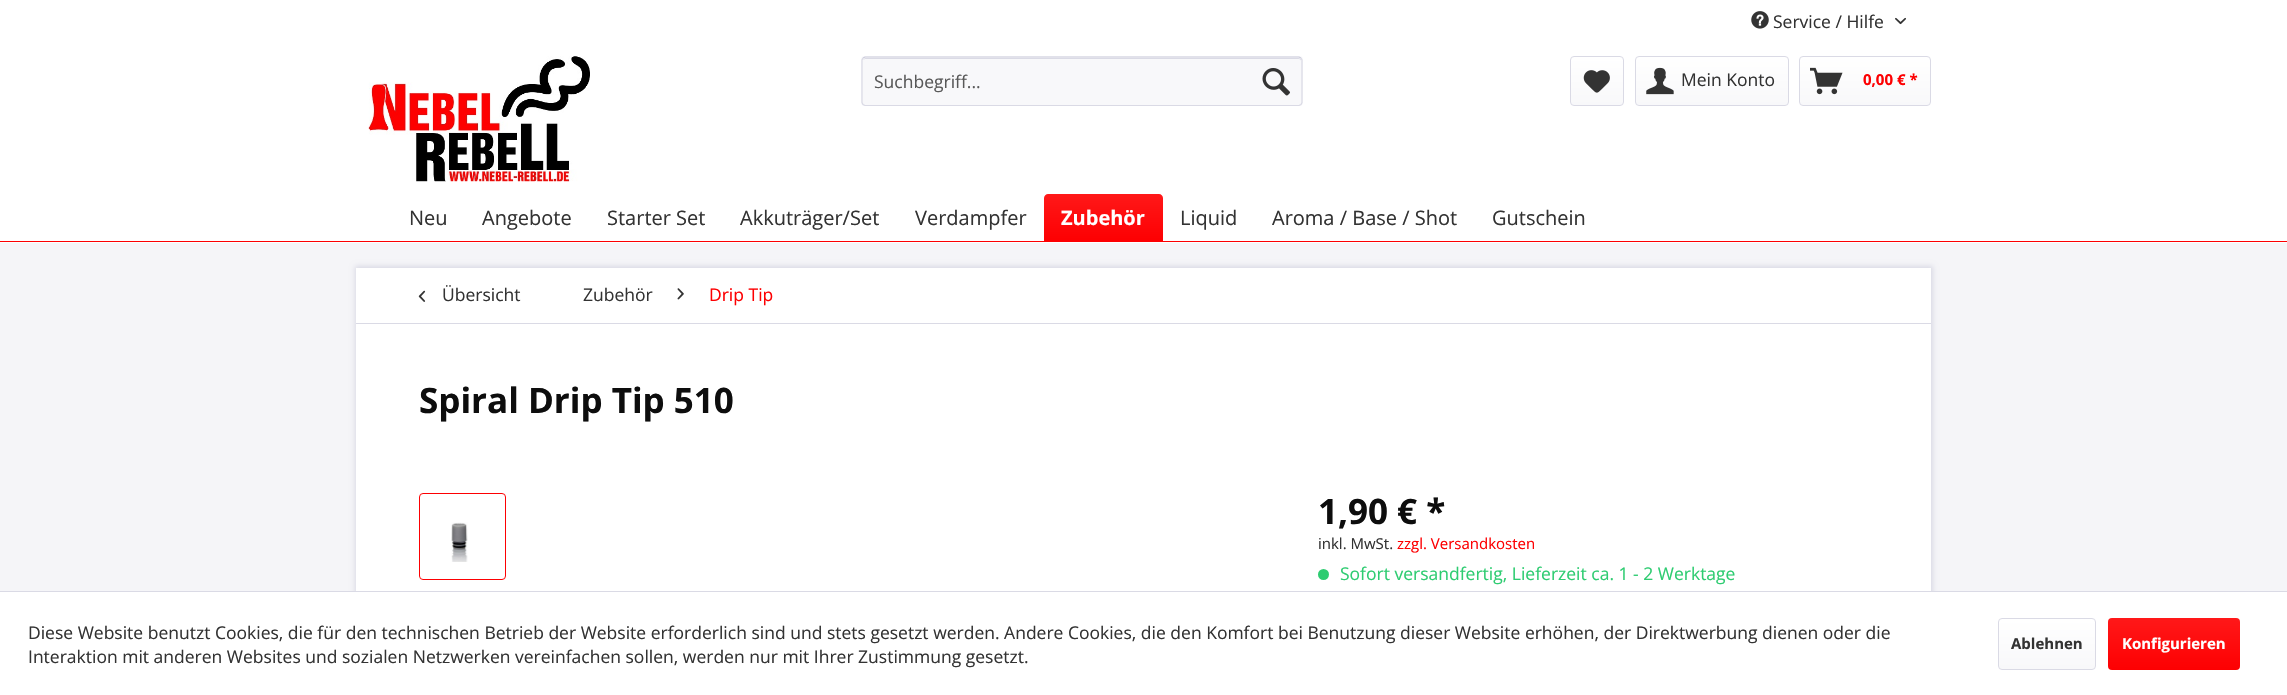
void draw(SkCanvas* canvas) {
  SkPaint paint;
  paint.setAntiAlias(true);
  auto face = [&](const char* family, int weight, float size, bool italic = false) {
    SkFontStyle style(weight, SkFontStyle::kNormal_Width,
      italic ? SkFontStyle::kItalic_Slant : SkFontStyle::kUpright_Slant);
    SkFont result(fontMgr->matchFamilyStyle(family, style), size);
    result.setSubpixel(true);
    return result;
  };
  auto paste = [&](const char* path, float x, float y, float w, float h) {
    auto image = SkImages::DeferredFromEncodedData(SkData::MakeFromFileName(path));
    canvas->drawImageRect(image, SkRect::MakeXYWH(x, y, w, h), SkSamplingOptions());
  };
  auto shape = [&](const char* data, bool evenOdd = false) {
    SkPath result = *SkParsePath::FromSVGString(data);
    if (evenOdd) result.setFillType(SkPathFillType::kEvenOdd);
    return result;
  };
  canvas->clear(0xfff5f5f8);
  paint.setColor(0xffffffff);
  canvas->drawRect(SkRect::MakeXYWH(0, 0, 2287, 243), paint);
  paste("img/1.png", 1751, 11, 18, 18);
  paste("img/2.png", 1895, 17, 11, 8);
  paste("img/3.png", 368, 56, 222, 126);
  paint.setColor(0xfff8f8fa);
  canvas->drawRoundRect(SkRect::MakeXYWH(861, 56, 442, 50), 4, 4, paint);
  paint.setColor(0xffdadae5);
  canvas->drawPath(shape("M865 59H1299C1300 59 1301 60 1301 61V60C1301 59 1300 58 1298 58H866C864 58 864 59 863 60Z"), paint);
  paint.setStroke(true);
  paint.setStrokeWidth(1.2f);
  paint.setColor(0xffcbcbdb);
  canvas->drawPath(shape("M863 58L865 57H1299L1301 58"), paint);
  paint.setColor(0xffdadae5);
  canvas->drawPath(shape("M1301 58L1302 60V102.5L1301 104.5L1299 105.5H865L863 104.5L862 102.5V60L863 58"), paint);
  paste("img/4.png", 1262, 68, 28, 28);
  paint.setStroke(false);
  {
    const SkColor colors[] = {0xffffffff, 0xfff8f8fa};
    const float stops[] = {0, 1};
    const SkPoint ends[] = {{1597, 58}, {1597, 105}};
    paint.setShader(SkGradientShader::MakeLinear(ends, colors, stops, 2, SkTileMode::kClamp));
    paint.setAlpha(255);
  }
  canvas->drawRoundRect(SkRect::MakeXYWH(1571, 58, 52, 47), 2.5f, 2.5f, paint);
  paint.setStroke(true);
  paint.setStrokeWidth(1);
  paint.setShader(nullptr);
  paint.setColor(0xffdadae5);
  canvas->drawRoundRect(SkRect::MakeXYWH(1570.5f, 56.5f, 53, 49), 3.5f, 3.5f, paint);
  paste("img/5.png", 1583, 70, 27, 23);
  paint.setStroke(false);
  {
    const SkColor colors[] = {0xffffffff, 0xfff8f8fa};
    const float stops[] = {0, 1};
    const SkPoint ends[] = {{1712, 57}, {1712, 105}};
    paint.setShader(SkGradientShader::MakeLinear(ends, colors, stops, 2, SkTileMode::kClamp));
    paint.setAlpha(255);
  }
  canvas->drawRoundRect(SkRect::MakeXYWH(1636, 58, 152, 47), 2.5f, 2.5f, paint);
  paint.setStroke(true);
  paint.setShader(nullptr);
  paint.setColor(0xffdadae5);
  canvas->drawRoundRect(SkRect::MakeXYWH(1635.5f, 56.5f, 153, 49), 3.5f, 3.5f, paint);
  paste("img/6.png", 1646, 67, 28, 28);
  paint.setStroke(false);
  {
    const SkColor colors[] = {0xffffffff, 0xfff8f8fa};
    const float stops[] = {0, 1};
    const SkPoint ends[] = {{1865, 57}, {1865, 105}};
    paint.setShader(SkGradientShader::MakeLinear(ends, colors, stops, 2, SkTileMode::kClamp));
    paint.setAlpha(255);
  }
  canvas->drawRoundRect(SkRect::MakeXYWH(1800, 58, 130, 47), 2.5f, 2.5f, paint);
  paint.setStroke(true);
  paint.setShader(nullptr);
  paint.setColor(0xffdadae5);
  canvas->drawRoundRect(SkRect::MakeXYWH(1799.5f, 56.5f, 131, 49), 3.5f, 3.5f, paint);
  paste("img/7.png", 1810, 67, 33, 28);
  paint.setStroke(false);
  paint.setColor(0xfffd0002);
  canvas->drawRect(SkRect::MakeXYWH(0, 241, 2287, 1), paint);
  {
    const SkColor colors[] = {0xffff1819, 0xfffd0002};
    const float stops[] = {0, 1};
    const SkPoint ends[] = {{1103, 194}, {1103, 241}};
    paint.setShader(SkGradientShader::MakeLinear(ends, colors, stops, 2, SkTileMode::kClamp));
    paint.setAlpha(255);
  }
  canvas->drawPath(shape("M1048 194H1159C1161 194 1163 196 1163 198V241H1044V198C1044 196 1046 194 1048 194Z"), paint);
  paint.setShader(nullptr);
  paint.setColor(0xffdadae5);
  paint.setMaskFilter(SkMaskFilter::MakeBlur(kNormal_SkBlurStyle, 2.5f));
  canvas->drawRect(SkRect::MakeXYWH(355, 266, 1578, 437), paint);
  paint.setMaskFilter(nullptr);
  paint.setColor(0xffffffff);
  canvas->drawRect(SkRect::MakeXYWH(356, 268, 1575, 323), paint);
  paint.setColor(0xffdadae5);
  canvas->drawRect(SkRect::MakeXYWH(356, 323, 1575, 1), paint);
  paste("img/8.png", 418, 290, 8, 12);
  paste("img/9.png", 677, 288, 7, 12);
  paint.setStroke(true);
  paint.setColor(0xfffd0002);
  canvas->drawRoundRect(SkRect::MakeXYWH(419.5f, 493.5f, 86, 86), 3.5f, 3.5f, paint);
  paste("img/10.png", 451, 522, 17, 40);
  paint.setStroke(false);
  paint.setColor(0xff2ecc71);
  canvas->drawCircle(1323.5f, 574.5f, 5.5f, paint);
  paint.setColor(0xffffffff);
  canvas->drawRect(SkRect::MakeXYWH(0, 592, 2287, 103), paint);
  paint.setColor(0xffdadae5);
  canvas->drawRect(SkRect::MakeXYWH(0, 591, 2287, 1), paint);
  {
    const SkColor colors[] = {0xffffffff, 0xfff8f8fa};
    const float stops[] = {0, 1};
    const SkPoint ends[] = {{2047, 619}, {2047, 669}};
    paint.setShader(SkGradientShader::MakeLinear(ends, colors, stops, 2, SkTileMode::kClamp));
    paint.setAlpha(255);
  }
  canvas->drawRoundRect(SkRect::MakeXYWH(1999, 619, 96, 50), 2.5f, 2.5f, paint);
  paint.setStroke(true);
  paint.setShader(nullptr);
  paint.setColor(0xffdadae5);
  canvas->drawRoundRect(SkRect::MakeXYWH(1998.5f, 618.5f, 97, 51), 3.5f, 3.5f, paint);
  paint.setStroke(false);
  {
    const SkColor colors[] = {0xffff1819, 0xfffd0002};
    const float stops[] = {0, 1};
    const SkPoint ends[] = {{2174, 618}, {2174, 670}};
    paint.setShader(SkGradientShader::MakeLinear(ends, colors, stops, 2, SkTileMode::kClamp));
    paint.setAlpha(255);
  }
  canvas->drawRoundRect(SkRect::MakeXYWH(2108, 618, 132, 52), 4, 4, paint);
  auto f0 = face("Open Sans", 400, 17.5f);
  paint.setShader(nullptr);
  paint.setColor(0xff333333);
  canvas->drawString("Service / Hilfe", 1773, 28, f0, paint);
  paint.setColor(0xff595959);
  canvas->drawString("Suchbegriff...", 874, 88, f0, paint);
  paint.setColor(0xff333333);
  canvas->drawString("Mein Konto", 1681, 86, f0, paint);
  auto f1 = face("Open Sans", 700, 15);
  paint.setColor(0xfffd0002);
  canvas->drawString("0,00 € *", 1863, 85, f1, paint);
  auto f2 = face("Open Sans", 400, 20);
  paint.setColor(0xff333333);
  {
    const struct { const char* s; float x, y; } items[] = {
      {"Neu", 409, 225},
      {"Angebote", 482, 225},
      {"Starter Set", 607, 225},
      {"Akkuträger/Set", 740, 225},
      {"Verdampfer", 915, 225},
    };
    for (auto [s, x, y] : items) {
      canvas->drawString(s, x, y, f2, paint);
    }
  }
  auto f3 = face("Open Sans", 700, 20);
  paint.setColor(0xffffffff);
  canvas->drawString("Zubehör", 1061, 225, f3, paint);
  paint.setColor(0xff333333);
  {
    const struct { const char* s; float x, y; } items[] = {
      {"Liquid", 1180, 225},
      {"Aroma / Base / Shot", 1272, 225},
      {"Gutschein", 1492, 225},
    };
    for (auto [s, x, y] : items) {
      canvas->drawString(s, x, y, f2, paint);
    }
  }
  canvas->drawString("Übersicht", 442, 301, f0, paint);
  canvas->drawString("Zubehör", 583, 301, f0, paint);
  paint.setColor(0xfffd0002);
  canvas->drawString("Drip Tip", 709, 301, f0, paint);
  auto f4 = face("Open Sans", 700, 35);
  paint.setColor(0xff0d0d0d);
  canvas->drawString("Spiral Drip Tip 510", 419, 413, f4, paint);
  canvas->drawString("1,90 € *", 1318, 524, f4, paint);
  auto f5 = face("Open Sans", 400, 15);
  paint.setColor(0xff333333);
  canvas->drawString("inkl. MwSt.", 1318, 549, f5, paint);
  paint.setColor(0xfffd0002);
  canvas->drawString("zzgl. Versandkosten", 1397, 549, f5, paint);
  paint.setColor(0xff2ecc71);
  canvas->drawString("Sofort versandfertig, Lieferzeit ca. 1 - 2 Werktage", 1340, 580, f0, paint);
  paint.setColor(0xff333333);
  canvas->drawString("Diese Website benutzt Cookies, die für den technischen Betrieb der Website erforderlich sind und stets gesetzt werden. Andere Cookies, die den Komfort bei Benutzung dieser Website erhöhen, der Direktwerbung dienen oder die", 28, 639, f0, paint);
  canvas->drawString("Interaktion mit anderen Websites und sozialen Netzwerken vereinfachen sollen, werden nur mit Ihrer Zustimmung gesetzt.", 28, 663, f0, paint);
  canvas->drawString("Ablehnen", 2011, 649, f1, paint);
  paint.setColor(0xffffffff);
  canvas->drawString("Konfigurieren", 2122, 649, f1, paint);
}
